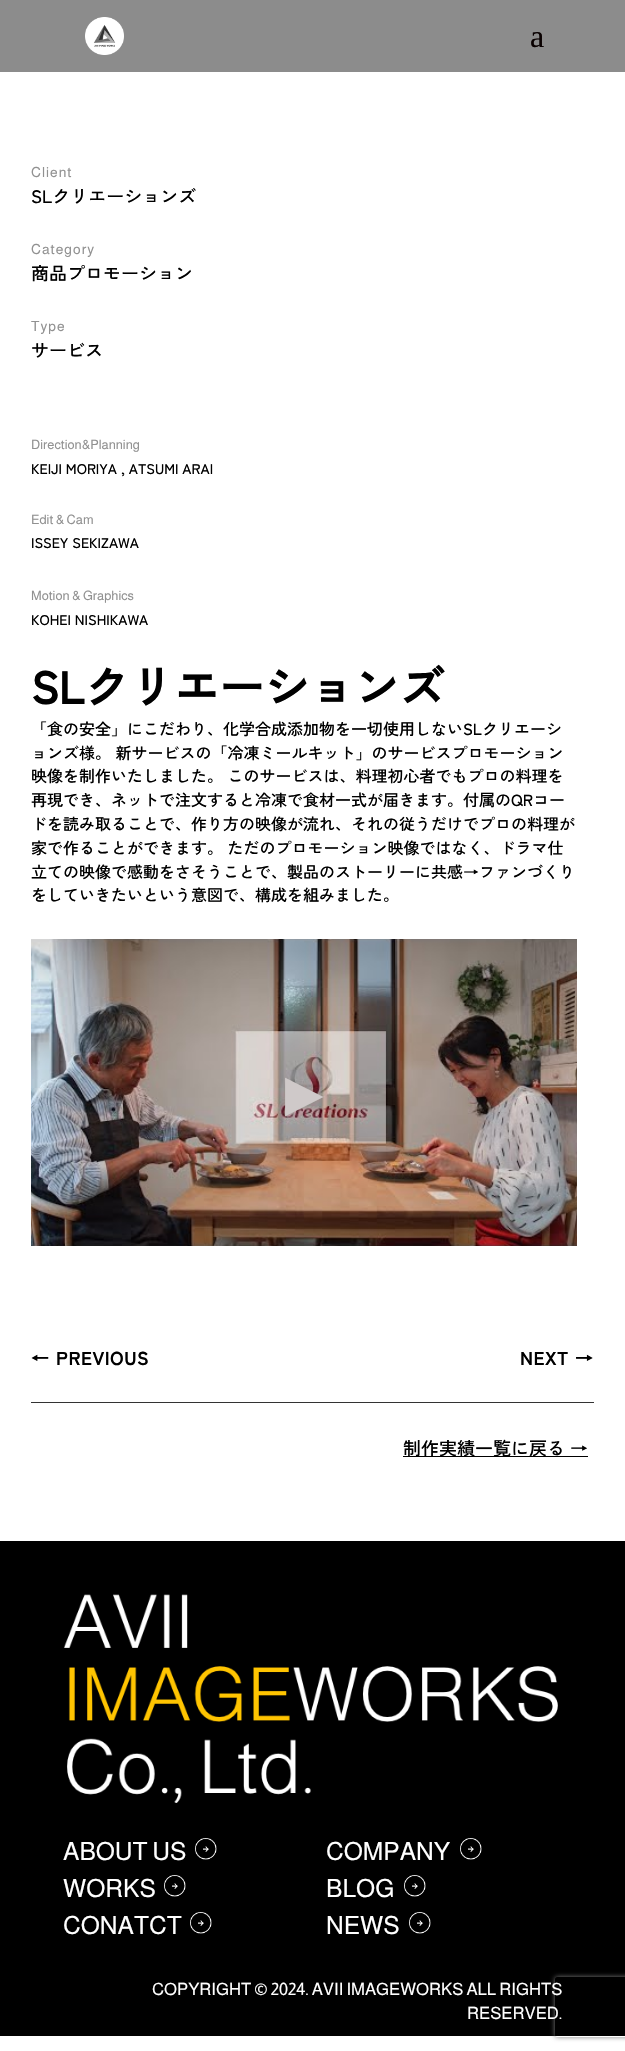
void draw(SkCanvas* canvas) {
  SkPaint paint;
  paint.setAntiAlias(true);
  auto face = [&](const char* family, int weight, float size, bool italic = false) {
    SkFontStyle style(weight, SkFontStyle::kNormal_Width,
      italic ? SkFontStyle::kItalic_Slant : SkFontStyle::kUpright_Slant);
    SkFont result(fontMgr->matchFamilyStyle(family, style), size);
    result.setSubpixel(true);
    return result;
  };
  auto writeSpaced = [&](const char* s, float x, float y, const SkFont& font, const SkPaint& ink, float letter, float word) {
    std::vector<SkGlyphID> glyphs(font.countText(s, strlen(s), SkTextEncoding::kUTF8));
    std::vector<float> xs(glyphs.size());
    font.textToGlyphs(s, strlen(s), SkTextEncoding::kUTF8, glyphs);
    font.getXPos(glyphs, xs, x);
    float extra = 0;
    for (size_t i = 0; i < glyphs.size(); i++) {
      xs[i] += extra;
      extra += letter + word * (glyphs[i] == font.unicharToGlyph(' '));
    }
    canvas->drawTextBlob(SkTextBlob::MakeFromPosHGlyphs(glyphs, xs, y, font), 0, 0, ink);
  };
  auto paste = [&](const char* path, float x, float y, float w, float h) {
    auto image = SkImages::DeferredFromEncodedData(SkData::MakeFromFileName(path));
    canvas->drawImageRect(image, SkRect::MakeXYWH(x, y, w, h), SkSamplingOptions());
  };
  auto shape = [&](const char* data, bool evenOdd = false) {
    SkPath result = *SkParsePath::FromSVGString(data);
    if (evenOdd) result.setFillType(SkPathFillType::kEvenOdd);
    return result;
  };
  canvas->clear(0xffffffff);
  paint.setColor(0xff8c8c8c);
  canvas->drawRect(SkRect::MakeXYWH(0, 0, 625, 72), paint);
  paste("img/1.png", 85, 17, 39, 38);
  paste("img/2.png", 31, 939, 546, 307);
  {
    const struct { float x, y, w, h; SkColor color; } items[] = {
      {31, 1402, 563, 1, 0xff333333},
      {403, 1456, 185, 1, 0xff000000},
      {0, 1541, 625, 495, 0xff000000},
    };
    for (auto [x, y, w, h, color] : items) {
      paint.setColor(color);
      canvas->drawRect(SkRect::MakeXYWH(x, y, w, h), paint);
    }
  }
  paste("img/3.png", 63, 1594, 495, 209);
  paste("img/4.png", 195, 1838, 22, 22);
  paste("img/4.png", 164, 1875, 22, 22);
  paste("img/4.png", 190, 1912, 22, 22);
  paste("img/4.png", 460, 1838, 22, 22);
  paste("img/4.png", 404, 1875, 22, 22);
  paste("img/4.png", 409, 1912, 22, 22);
  canvas->save();
  canvas->clipPath(shape("M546 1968H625V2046H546ZM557 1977H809C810 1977 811 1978 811 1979V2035C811 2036 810 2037 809 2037H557C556 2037 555 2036 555 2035V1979C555 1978 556 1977 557 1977Z", true), true);
  paint.setColor(0xff808080);
  paint.setMaskFilter(SkMaskFilter::MakeBlur(kNormal_SkBlurStyle, 2.5f));
  canvas->drawRoundRect(SkRect::MakeXYWH(555, 1977, 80, 60), 2, 2, paint);
  paint.setMaskFilter(nullptr);
  canvas->restore();
  auto f0 = face("Liberation Serif", 400, 32);
  paint.setColor(0xff0a0101);
  canvas->drawString("a", 530, 47, f0, paint);
  auto f1 = face("Almarai", 400, 14);
  paint.setColor(0xff919191);
  writeSpaced("Client", 31, 177, f1, paint, 1, 0);
  auto f2 = face("Zen Kaku Gothic New", 500, 18);
  paint.setColor(0xff000000);
  canvas->drawString("SLクリエーションズ", 31, 203, f2, paint);
  paint.setColor(0xff919191);
  writeSpaced("Category", 31, 254, f1, paint, 1, 0);
  paint.setColor(0xff000000);
  canvas->drawString("商品プロモーション", 31, 280, f2, paint);
  paint.setColor(0xff919191);
  writeSpaced("Type", 31, 331, f1, paint, 1, 0);
  paint.setColor(0xff000000);
  canvas->drawString("サービス", 31, 357, f2, paint);
  auto f3 = face("Almarai", 400, 13);
  paint.setColor(0xff919191);
  canvas->drawString("Direction&Planning", 31, 449, f3, paint);
  auto f4 = face("Zen Kaku Gothic New", 500, 14);
  paint.setColor(0xff000000);
  canvas->drawString("KEIJI MORIYA , ATSUMI ARAI", 31, 474, f4, paint);
  paint.setColor(0xff919191);
  canvas->drawString("Edit & Cam", 31, 524, f3, paint);
  paint.setColor(0xff000000);
  canvas->drawString("ISSEY SEKIZAWA", 31, 548, f4, paint);
  paint.setColor(0xff919191);
  canvas->drawString("Motion & Graphics", 31, 600, f3, paint);
  paint.setColor(0xff000000);
  canvas->drawString("KOHEI NISHIKAWA", 31, 625, f4, paint);
  auto f5 = face("Zen Kaku Gothic New", 700, 45);
  canvas->drawString("SLクリエーションズ", 31, 704, f5, paint);
  auto f6 = face("Zen Kaku Gothic New", 500, 16);
  {
    const struct { const char* s; float x, y; } items[] = {
      {"「食の安全」にこだわり、化学合成添加物を一切使用しないSLクリエーシ", 31, 735},
      {"ョンズ様。 新サービスの「冷凍ミールキット」のサービスプロモーション", 31, 759},
      {"映像を制作いたしました。 このサービスは、料理初心者でもプロの料理を", 31, 782},
      {"再現でき、ネットで注文すると冷凍で食材一式が届きます。付属のQRコー", 31, 806},
      {"ドを読み取ることで、作り方の映像が流れ、それの従うだけでプロの料理が", 31, 830},
      {"家で作ることができます。 ただのプロモーション映像ではなく、ドラマ仕", 31, 854},
      {"立ての映像で感動をさそうことで、製品のストーリーに共感→ファンづくり", 31, 878},
      {"をしていきたいという意図で、構成を組みました。", 31, 901},
    };
    for (auto [s, x, y] : items) {
      canvas->drawString(s, x, y, f6, paint);
    }
  }
  auto f7 = face("DejaVu Sans", 400, 50);
  paint.setColor(0xffcfc9c9);
  canvas->drawString("▶", 285, 1110, f7, paint);
  auto f8 = face("Zen Kaku Gothic New", 700, 18);
  paint.setColor(0xff000000);
  writeSpaced("← PREVIOUS", 31, 1365, f8, paint, 1, 0);
  writeSpaced("NEXT →", 520, 1365, f8, paint, 1, 0);
  canvas->drawString("制作実績一覧に戻る →", 403, 1455, f2, paint);
  auto f9 = face("Almarai", 400, 25);
  paint.setColor(0xffffffff);
  {
    const struct { const char* s; float x, y; } items[] = {
      {"ABOUT US", 63, 1860},
      {"WORKS", 63, 1897},
      {"CONATCT", 63, 1934},
      {"COMPANY", 326, 1860},
      {"BLOG", 326, 1897},
      {"NEWS", 326, 1934},
    };
    for (auto [s, x, y] : items) {
      canvas->drawString(s, x, y, f9, paint);
    }
  }
  auto f10 = face("Almarai", 400, 17);
  canvas->drawString("COPYRIGHT © 2024. AVII IMAGEWORKS ALL RIGHTS", 152, 1995, f10, paint);
  canvas->drawString("RESERVED.", 467, 2019, f10, paint);
}
